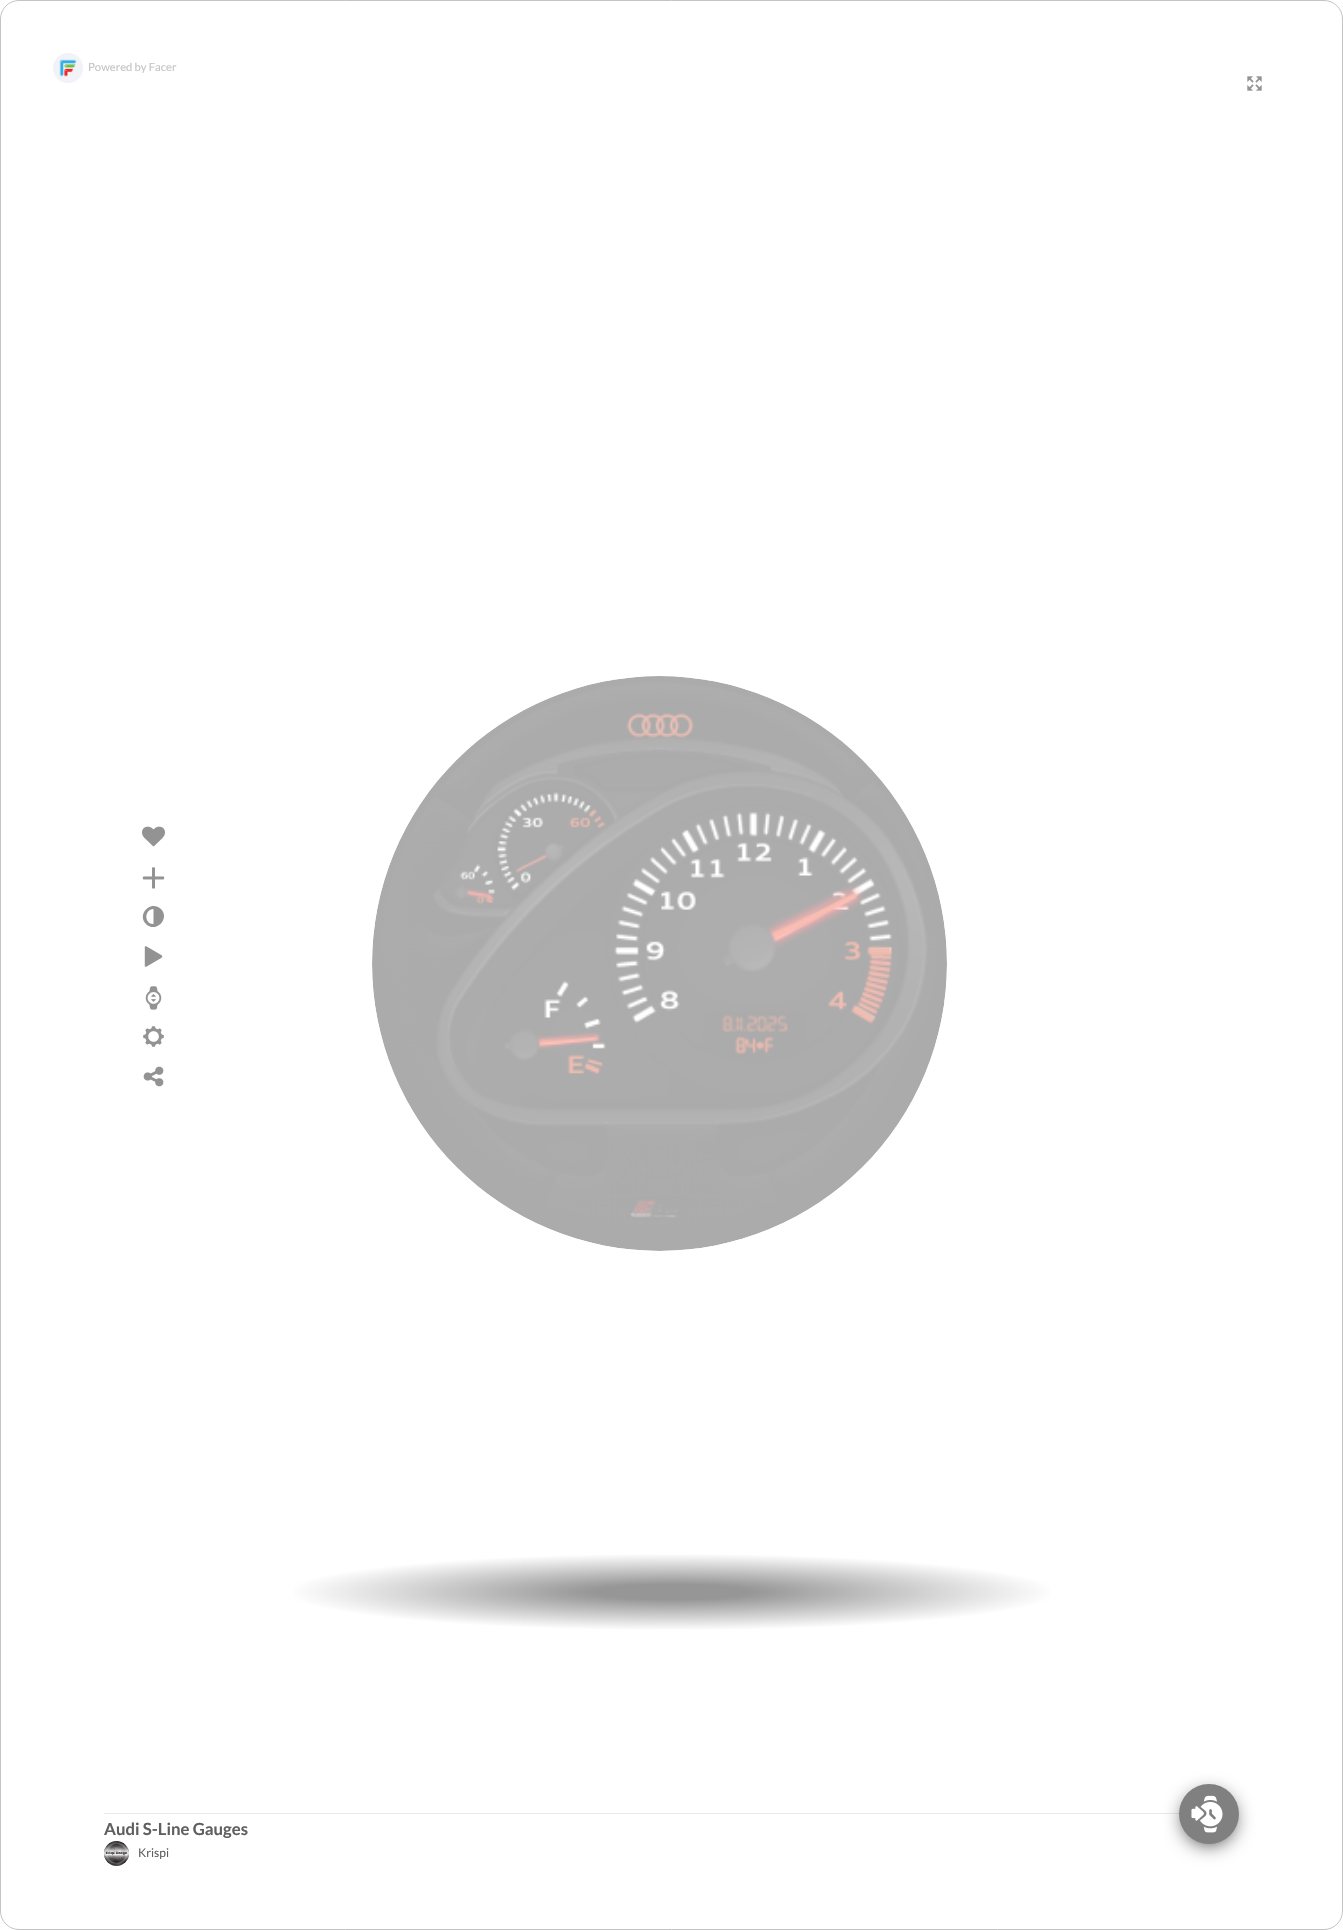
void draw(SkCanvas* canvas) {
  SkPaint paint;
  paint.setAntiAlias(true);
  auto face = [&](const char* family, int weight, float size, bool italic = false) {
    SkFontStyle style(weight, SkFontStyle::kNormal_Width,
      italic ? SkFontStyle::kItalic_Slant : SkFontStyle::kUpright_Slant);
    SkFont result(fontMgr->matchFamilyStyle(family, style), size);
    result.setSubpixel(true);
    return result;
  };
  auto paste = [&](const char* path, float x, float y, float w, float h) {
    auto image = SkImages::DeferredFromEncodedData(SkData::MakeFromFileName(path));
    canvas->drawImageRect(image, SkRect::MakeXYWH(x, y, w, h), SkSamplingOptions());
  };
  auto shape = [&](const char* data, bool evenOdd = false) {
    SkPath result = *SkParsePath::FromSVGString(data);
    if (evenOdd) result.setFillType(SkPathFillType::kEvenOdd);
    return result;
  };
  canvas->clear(0xffffffff);
  paint.setStroke(true);
  paint.setStrokeWidth(1);
  paint.setColor(0xffc4c4c4);
  canvas->drawRoundRect(SkRect::MakeXYWH(0.5f, 0.5f, 1342, 1929), 18.5f, 18.5f, paint);
  paste("img/1.png", 53, 53, 30, 30);
  paste("img/2.png", 1247, 76, 15, 15);
  paste("img/3.png", 142, 826, 23, 21);
  paste("img/4.png", 142, 867, 23, 22);
  paint.setStroke(false);
  paint.setColor(0xff939393);
  canvas->drawPath(shape("M153.5 924C144 924 144 909.5 153.5 909ZM161 909C151 899.5 136.5 914 146 924C155.5 933.5 170.5 919 161 909Z"), paint);
  paste("img/5.png", 144, 946, 19, 21);
  paste("img/6.png", 145, 986, 17, 24);
  paste("img/7.png", 143, 1026, 21, 21);
  paste("img/8.png", 143, 1066, 21, 21);
  paste("img/9.png", 372, 676, 575, 575);
  {
    const SkColor colors[] = {0xff969696, 0xffffffff};
    const float stops[] = {0.1f, 0.5f};
    SkMatrix m = SkMatrix::Translate(672, 1592).preScale(770, 77);
    paint.setShader(SkGradientShader::MakeRadial({0, 0}, 1, colors, stops, 2, SkTileMode::kClamp, 0, &m));
    paint.setAlpha(255);
  }
  canvas->drawRect(SkRect::MakeXYWH(294, 1554, 756, 76), paint);
  paint.setShader(nullptr);
  paint.setColor(0xffe9e9e9);
  canvas->drawRect(SkRect::MakeXYWH(104, 1813, 1135, 1), paint);
  paste("img/10.png", 104, 1841, 25, 25);
  paint.setColor(0xff000000);
  paint.setMaskFilter(SkMaskFilter::MakeBlur(kNormal_SkBlurStyle, 10.5f));
  canvas->drawRoundRect(SkRect::MakeXYWH(1186, 1796, 46, 46), 23, 23, paint);
  paint.setMaskFilter(nullptr);
  paint.setColor(0xff808080);
  canvas->drawCircle(1209, 1814, 30, paint);
  paste("img/11.png", 1191, 1795, 32, 38);
  auto f0 = face("Lato", 400, 11.25f);
  paint.setColor(0xffc5c5c5);
  canvas->drawString("Powered by Facer", 88, 71, f0, paint);
  auto f1 = face("Lato", 700, 16.75f);
  paint.setColor(0xff5f5f5f);
  canvas->drawString("Audi S-Line Gauges", 104, 1835, f1, paint);
  auto f2 = face("Lato", 400, 12);
  canvas->drawString("Krispi", 138, 1857, f2, paint);
}
